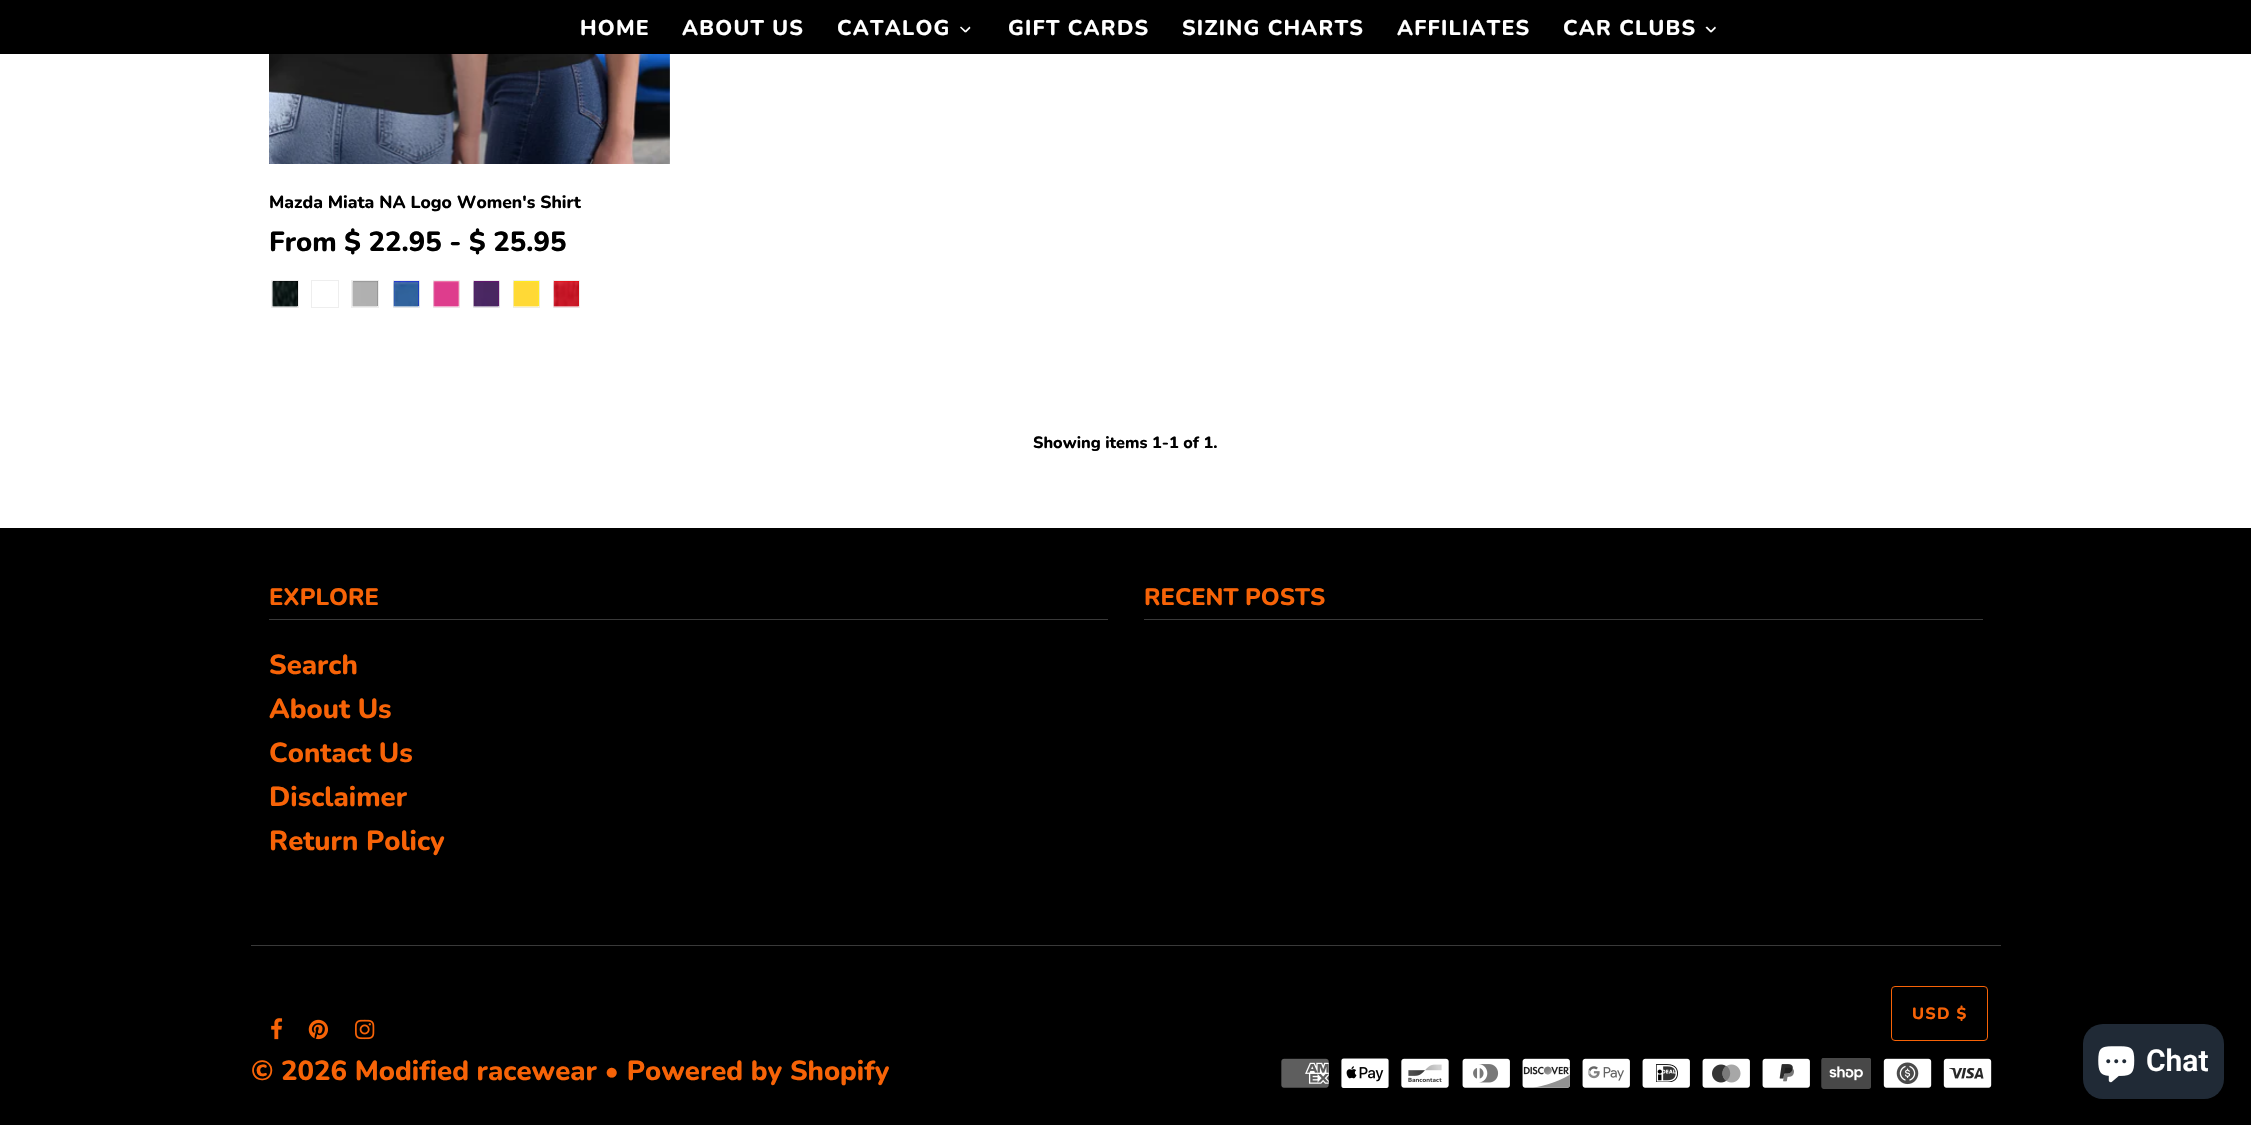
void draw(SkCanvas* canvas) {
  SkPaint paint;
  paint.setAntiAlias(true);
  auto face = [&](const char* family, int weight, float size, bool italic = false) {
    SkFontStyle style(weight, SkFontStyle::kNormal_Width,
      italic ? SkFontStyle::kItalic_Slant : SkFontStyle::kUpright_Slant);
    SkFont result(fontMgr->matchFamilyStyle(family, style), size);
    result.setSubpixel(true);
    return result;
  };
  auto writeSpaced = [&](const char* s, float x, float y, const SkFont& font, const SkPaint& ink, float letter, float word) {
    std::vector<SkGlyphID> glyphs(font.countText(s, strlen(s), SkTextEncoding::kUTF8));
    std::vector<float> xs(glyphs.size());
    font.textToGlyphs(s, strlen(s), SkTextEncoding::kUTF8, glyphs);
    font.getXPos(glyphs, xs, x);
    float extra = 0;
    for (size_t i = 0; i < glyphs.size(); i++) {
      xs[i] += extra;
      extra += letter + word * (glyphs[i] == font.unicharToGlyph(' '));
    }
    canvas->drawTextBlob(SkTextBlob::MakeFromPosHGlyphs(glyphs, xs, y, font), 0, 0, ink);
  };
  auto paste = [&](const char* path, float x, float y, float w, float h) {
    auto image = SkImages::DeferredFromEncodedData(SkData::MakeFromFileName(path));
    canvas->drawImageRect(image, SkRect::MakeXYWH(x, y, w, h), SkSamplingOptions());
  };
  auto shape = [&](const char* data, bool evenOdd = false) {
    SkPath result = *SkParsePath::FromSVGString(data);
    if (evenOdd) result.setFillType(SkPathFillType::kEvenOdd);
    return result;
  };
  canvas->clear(0xffffffff);
  paint.setColor(0xff000000);
  canvas->drawRect(SkRect::MakeXYWH(0, 0, 2251, 54), paint);
  paint.setColor(0xffffffff);
  canvas->drawPath(shape("M969.5 26.5L970.5 28L966 32.5L964.5 31.5Z"), paint);
  canvas->drawPath(shape("M961 26.5L966.5 31.5L965 32.5L960 27.5Z"), paint);
  canvas->drawPath(shape("M1715 26.5L1716 28L1711.5 32.5L1710 31.5Z"), paint);
  canvas->drawPath(shape("M1707 26.5L1712 31.5L1710.5 32.5L1705.5 27.5Z"), paint);
  paste("img/1.png", 269, 54, 401, 110);
  paint.setStroke(true);
  paint.setStrokeWidth(1);
  paint.setColor(0xffeeeeee);
  canvas->drawRect(SkRect::MakeXYWH(271.5f, 280.5f, 27, 27), paint);
  paint.setStroke(false);
  paint.setColor(0xff000000);
  canvas->drawRect(SkRect::MakeXYWH(273, 281, 25, 25), paint);
  paste("img/2.png", 272, 281, 26, 27);
  paint.setStroke(true);
  paint.setColor(0xffeeeeee);
  canvas->drawRect(SkRect::MakeXYWH(311.5f, 280.5f, 27, 27), paint);
  canvas->drawRect(SkRect::MakeXYWH(351.5f, 280.5f, 27, 27), paint);
  paint.setStroke(false);
  paint.setColor(0xff808080);
  canvas->drawRect(SkRect::MakeXYWH(353, 281, 25, 25), paint);
  paste("img/3.png", 352, 281, 26, 26);
  paint.setStroke(true);
  paint.setColor(0xffeeeeee);
  canvas->drawRect(SkRect::MakeXYWH(393.5f, 280.5f, 26, 27), paint);
  paint.setStroke(false);
  paint.setColor(0xff0000ff);
  canvas->drawRect(SkRect::MakeXYWH(394, 281, 25, 25), paint);
  paste("img/4.png", 393, 281, 27, 27);
  paint.setStroke(true);
  paint.setColor(0xffeeeeee);
  canvas->drawRect(SkRect::MakeXYWH(433.5f, 280.5f, 26, 27), paint);
  paint.setStroke(false);
  paint.setColor(0xffffc0cb);
  canvas->drawRect(SkRect::MakeXYWH(434, 281, 25, 25), paint);
  paste("img/5.png", 433, 281, 27, 27);
  paint.setStroke(true);
  paint.setColor(0xffeeeeee);
  canvas->drawRect(SkRect::MakeXYWH(473.5f, 280.5f, 26, 27), paint);
  paint.setStroke(false);
  paint.setColor(0xff800080);
  canvas->drawRect(SkRect::MakeXYWH(474, 281, 25, 25), paint);
  paste("img/6.png", 473, 281, 27, 27);
  paint.setStroke(true);
  paint.setColor(0xffeeeeee);
  canvas->drawRect(SkRect::MakeXYWH(513.5f, 280.5f, 26, 27), paint);
  paint.setStroke(false);
  paint.setColor(0xffffff00);
  canvas->drawRect(SkRect::MakeXYWH(514, 281, 25, 25), paint);
  paste("img/7.png", 513, 281, 27, 27);
  paint.setStroke(true);
  paint.setColor(0xffeeeeee);
  canvas->drawRect(SkRect::MakeXYWH(553.5f, 280.5f, 26, 27), paint);
  paint.setStroke(false);
  paint.setColor(0xffff0000);
  canvas->drawRect(SkRect::MakeXYWH(554, 281, 25, 25), paint);
  paste("img/8.png", 553, 281, 26, 27);
  {
    const struct { float x, y, w, h; SkColor color; } items[] = {
      {0, 528, 2251, 597, 0xff000000},
      {269, 619, 839, 1, 0xff393939},
      {1144, 619, 839, 1, 0xff393939},
      {251, 945, 1750, 1, 0xff393939},
    };
    for (auto [x, y, w, h, color] : items) {
      paint.setColor(color);
      canvas->drawRect(SkRect::MakeXYWH(x, y, w, h), paint);
    }
  }
  paint.setStroke(true);
  paint.setColor(0xfff76307);
  canvas->drawRoundRect(SkRect::MakeXYWH(1891.5f, 986.5f, 96, 54), 3.5f, 3.5f, paint);
  paste("img/9.png", 1281, 1058, 48, 30);
  paste("img/10.png", 1341, 1058, 48, 30);
  paste("img/11.png", 1401, 1058, 48, 30);
  paste("img/12.png", 1462, 1058, 48, 30);
  paste("img/13.png", 1522, 1058, 48, 30);
  paste("img/14.png", 1582, 1058, 48, 30);
  paste("img/15.png", 1642, 1058, 48, 30);
  paste("img/16.png", 1702, 1058, 48, 30);
  paste("img/17.png", 1762, 1058, 48, 30);
  paste("img/18.png", 1821, 1058, 50, 31);
  paste("img/19.png", 1883, 1058, 49, 30);
  paste("img/20.png", 1943, 1058, 49, 30);
  paste("img/21.png", 271, 1018, 12, 22);
  paste("img/22.png", 308, 1019, 20, 21);
  paste("img/23.png", 355, 1019, 20, 21);
  paint.setStroke(false);
  paint.setColor(0xff202a36);
  canvas->drawRoundRect(SkRect::MakeXYWH(2083, 1024, 141, 75), 20, 20, paint);
  paste("img/24.png", 2098, 1046, 37, 37);
  auto f0 = face("Nunito", 800, 21.25f);
  paint.setColor(0xffffffff);
  {
    const struct { const char* s; float x, y; } items[] = {
      {"HOME", 580, 35},
      {"ABOUT US", 682, 35},
      {"CATALOG", 837, 35},
      {"GIFT CARDS", 1008, 35},
      {"SIZING CHARTS", 1182, 35},
      {"AFFILIATES", 1397, 35},
      {"CAR CLUBS", 1563, 35},
    };
    for (auto [s, x, y] : items) {
      writeSpaced(s, x, y, f0, paint, 1.25f, 0);
    }
  }
  auto f1 = face("Nunito", 800, 17.5f);
  paint.setColor(0xff000000);
  canvas->drawString("Mazda Miata NA Logo Women's Shirt", 269, 208, f1, paint);
  auto f2 = face("Nunito", 800, 27.5f);
  canvas->drawString("From $ 22.95 - $ 25.95", 269, 251, f2, paint);
  auto f3 = face("Nunito", 800, 16.25f);
  canvas->drawString("Showing items 1-1 of 1.", 1033, 448, f3, paint);
  auto f4 = face("Nunito", 800, 23.75f);
  paint.setColor(0xfff76307);
  canvas->drawString("EXPLORE", 269, 605, f4, paint);
  {
    const struct { const char* s; float x, y; } items[] = {
      {"Search", 269, 674},
      {"About Us", 269, 718},
      {"Contact Us", 269, 762},
      {"Disclaimer", 269, 806},
      {"Return Policy", 269, 850},
    };
    for (auto [s, x, y] : items) {
      canvas->drawString(s, x, y, f2, paint);
    }
  }
  canvas->drawString("RECENT POSTS", 1144, 605, f4, paint);
  writeSpaced("USD $", 1912, 1019, f3, paint, 1.25f, 0);
  canvas->drawString("© 2026 Modified racewear • Powered by Shopify", 251, 1080, f2, paint);
  auto f5 = face("Roboto", 600, 30);
  paint.setColor(0xffffffff);
  canvas->drawString("Chat", 2146, 1071, f5, paint);
}
